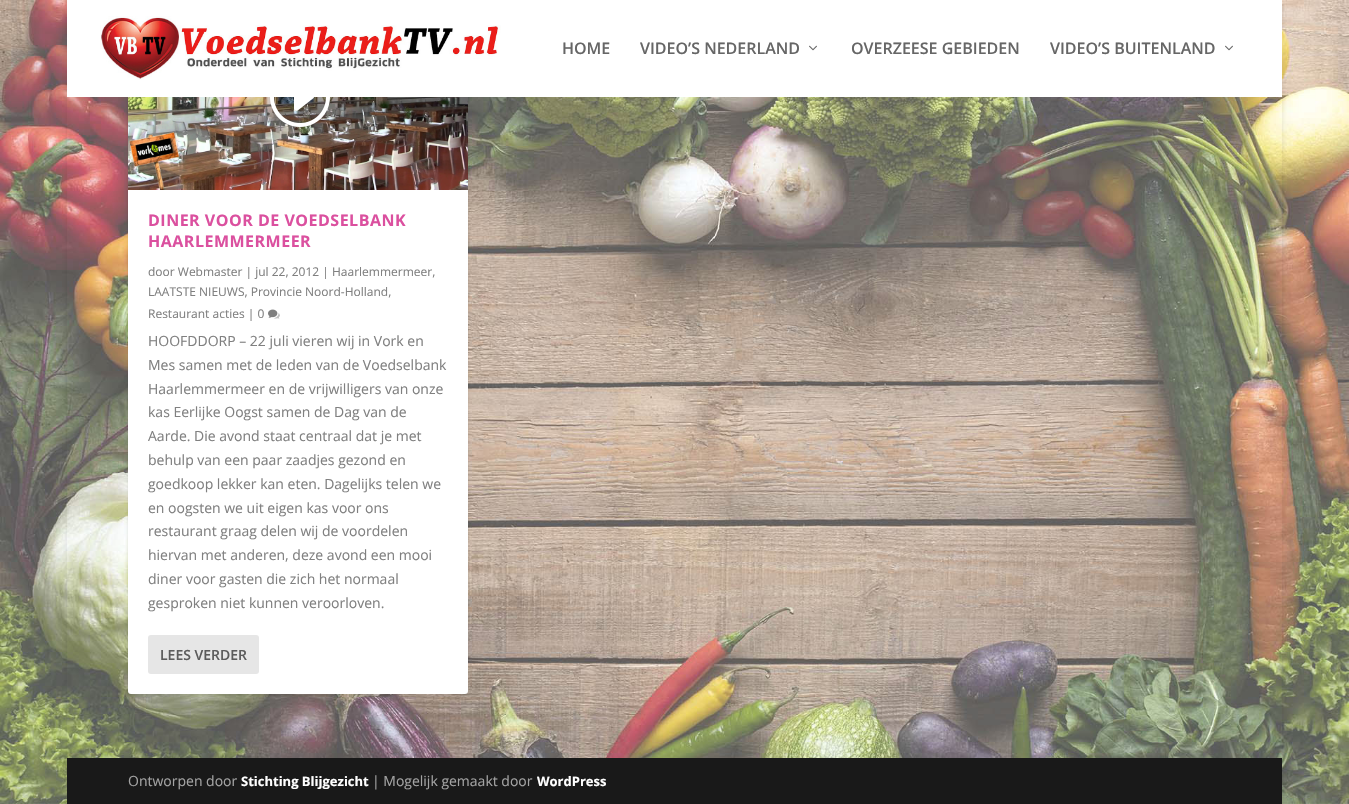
void draw(SkCanvas* canvas) {
  SkPaint paint;
  paint.setAntiAlias(true);
  auto face = [&](const char* family, int weight, float size, bool italic = false) {
    SkFontStyle style(weight, SkFontStyle::kNormal_Width,
      italic ? SkFontStyle::kItalic_Slant : SkFontStyle::kUpright_Slant);
    SkFont result(fontMgr->matchFamilyStyle(family, style), size);
    result.setSubpixel(true);
    return result;
  };
  auto writeSpaced = [&](const char* s, float x, float y, const SkFont& font, const SkPaint& ink, float letter, float word) {
    std::vector<SkGlyphID> glyphs(font.countText(s, strlen(s), SkTextEncoding::kUTF8));
    std::vector<float> xs(glyphs.size());
    font.textToGlyphs(s, strlen(s), SkTextEncoding::kUTF8, glyphs);
    font.getXPos(glyphs, xs, x);
    float extra = 0;
    for (size_t i = 0; i < glyphs.size(); i++) {
      xs[i] += extra;
      extra += letter + word * (glyphs[i] == font.unicharToGlyph(' '));
    }
    canvas->drawTextBlob(SkTextBlob::MakeFromPosHGlyphs(glyphs, xs, y, font), 0, 0, ink);
  };
  auto paste = [&](const char* path, float x, float y, float w, float h) {
    auto image = SkImages::DeferredFromEncodedData(SkData::MakeFromFileName(path));
    canvas->drawImageRect(image, SkRect::MakeXYWH(x, y, w, h), SkSamplingOptions());
  };
  auto shape = [&](const char* data, bool evenOdd = false) {
    SkPath result = *SkParsePath::FromSVGString(data);
    if (evenOdd) result.setFillType(SkPathFillType::kEvenOdd);
    return result;
  };
  canvas->clear(0xffffffff);
  paste("img/1.png", 0, 0, 1349, 804);
  canvas->save();
  canvas->clipPath(shape("M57 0H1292V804H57ZM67-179H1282V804H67Z", true), true);
  paint.setColor(0x1a000000);
  paint.setMaskFilter(SkMaskFilter::MakeBlur(kNormal_SkBlurStyle, 3));
  canvas->drawRect(SkRect::MakeXYWH(67, -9, 1215, 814), paint);
  paint.setMaskFilter(nullptr);
  canvas->restore();
  paint.setMaskFilter(SkMaskFilter::MakeBlur(kNormal_SkBlurStyle, 1.5f));
  canvas->drawRoundRect(SkRect::MakeXYWH(128, 0, 340, 695), 3, 3, paint);
  paint.setMaskFilter(nullptr);
  paint.setColor(0xffffffff);
  canvas->drawRoundRect(SkRect::MakeXYWH(128, -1, 340, 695), 3, 3, paint);
  canvas->drawRect(SkRect::MakeXYWH(67, 0, 1215, 97), paint);
  paste("img/2.png", 100, 16, 401, 64);
  paste("img/3.png", 809, 45, 8, 6);
  paste("img/3.png", 1225, 45, 8, 6);
  paste("img/4.png", 128, 97, 340, 93);
  paste("img/5.png", 270, 97, 60, 30);
  paste("img/6.png", 268, 309, 12, 10);
  paint.setColor(0xffe6e6e6);
  canvas->drawRoundRect(SkRect::MakeXYWH(148, 635, 111, 39), 3, 3, paint);
  paint.setColor(0xff191919);
  canvas->drawRect(SkRect::MakeXYWH(67, 758, 1215, 46), paint);
  auto f0 = face("Open Sans", 600, 16);
  paint.setColor(0xff666666);
  {
    const struct { const char* s; float x, y; } items[] = {
      {"HOME", 562, 54},
      {"VIDEO’S NEDERLAND", 640, 54},
      {"OVERZEESE GEBIEDEN", 851, 54},
      {"VIDEO’S BUITENLAND", 1050, 54},
    };
    for (auto [s, x, y] : items) {
      canvas->drawString(s, x, y, f0, paint);
    }
  }
  auto f1 = face("Open Sans", 700, 16);
  paint.setColor(0xffdb509f);
  writeSpaced("DINER VOOR DE VOEDSELBANK", 148, 226, f1, paint, 0.5f, 0);
  writeSpaced("HAARLEMMERMEER", 148, 247, f1, paint, 0.5f, 0);
  auto f2 = face("Open Sans", 400, 12);
  paint.setColor(0xff808080);
  {
    const struct { const char* s; float x, y; } items[] = {
      {"door Webmaster | jul 22, 2012 | Haarlemmermeer,", 148, 276},
      {"LAATSTE NIEUWS, Provincie Noord-Holland,", 148, 296},
      {"Restaurant acties | 0", 148, 318},
    };
    for (auto [s, x, y] : items) {
      canvas->drawString(s, x, y, f2, paint);
    }
  }
  auto f3 = face("Open Sans", 400, 14);
  {
    const struct { const char* s; float x, y; } items[] = {
      {"HOOFDDORP – 22 juli vieren wij in Vork en", 148, 346},
      {"Mes samen met de leden van de Voedselbank", 148, 370},
      {"Haarlemmermeer en de vrijwilligers van onze", 148, 394},
      {"kas Eerlijke Oogst samen de Dag van de", 148, 417},
      {"Aarde. Die avond staat centraal dat je met", 148, 441},
      {"behulp van een paar zaadjes gezond en", 148, 465},
      {"goedkoop lekker kan eten. Dagelijks telen we", 148, 489},
      {"en oogsten we uit eigen kas voor ons", 148, 513},
      {"restaurant graag delen wij de voordelen", 148, 536},
      {"hiervan met anderen, deze avond een mooi", 148, 560},
      {"diner voor gasten die zich het normaal", 148, 584},
      {"gesproken niet kunnen veroorloven.", 148, 608},
    };
    for (auto [s, x, y] : items) {
      canvas->drawString(s, x, y, f3, paint);
    }
  }
  auto f4 = face("Open Sans", 600, 14);
  paint.setColor(0xff5c5c5c);
  canvas->drawString("LEES VERDER", 160, 660, f4, paint);
  paint.setColor(0xffa3a3a3);
  canvas->drawString("Ontworpen door", 128, 786, f3, paint);
  auto f5 = face("Open Sans", 700, 13);
  paint.setColor(0xffffffff);
  canvas->drawString("Stichting Blijgezicht", 241, 786, f5, paint);
  paint.setColor(0xffa3a3a3);
  canvas->drawString("| Mogelijk gemaakt door", 372, 786, f3, paint);
  paint.setColor(0xffffffff);
  canvas->drawString("WordPress", 537, 786, f5, paint);
}
